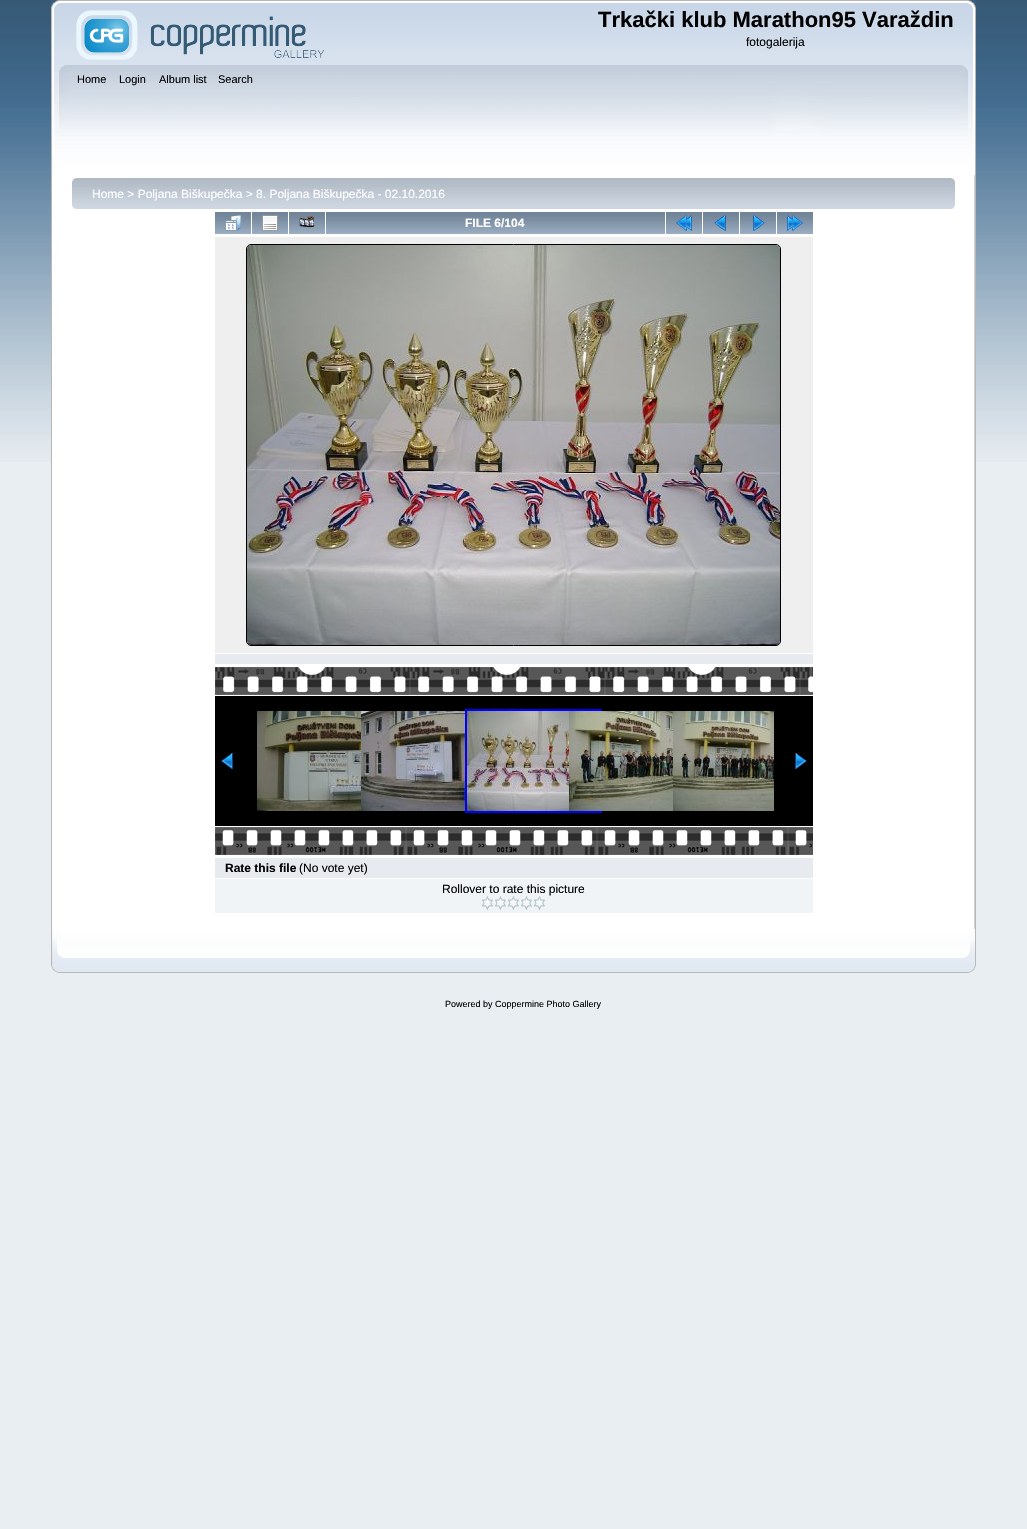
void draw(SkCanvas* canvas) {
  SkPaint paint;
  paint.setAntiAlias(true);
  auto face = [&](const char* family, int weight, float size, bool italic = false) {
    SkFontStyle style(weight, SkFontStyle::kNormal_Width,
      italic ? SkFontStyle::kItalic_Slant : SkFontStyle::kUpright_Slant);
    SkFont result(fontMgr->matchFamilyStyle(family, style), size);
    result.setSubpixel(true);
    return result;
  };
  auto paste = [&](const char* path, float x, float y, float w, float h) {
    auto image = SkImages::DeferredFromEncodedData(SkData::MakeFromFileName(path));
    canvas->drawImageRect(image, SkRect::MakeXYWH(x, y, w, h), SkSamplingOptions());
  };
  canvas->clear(0xffe9eef2);
  paste("img/1.png", 0, 0, 1027, 462);
  paste("img/2.png", 51, 0, 917, 65);
  paste("img/3.png", 968, 0, 8, 65);
  paste("img/4.png", 76, 10, 248, 50);
  paste("img/5.png", 51, 65, 910, 110);
  paste("img/6.png", 961, 65, 15, 110);
  paint.setColor(0xffffffff);
  canvas->drawRect(SkRect::MakeXYWH(52, 175, 922, 754), paint);
  paint.setColor(0xffb7b7b7);
  canvas->drawRect(SkRect::MakeXYWH(51, 175, 1, 754), paint);
  paste("img/7.png", 974, 175, 2, 754);
  paste("img/8.png", 72, 178, 878, 31);
  paste("img/9.png", 950, 178, 5, 31);
  paste("img/10.png", 215, 212, 36, 22);
  paste("img/11.png", 225, 215, 16, 16);
  paste("img/10.png", 252, 212, 36, 22);
  paste("img/12.png", 262, 215, 16, 16);
  paste("img/10.png", 289, 212, 36, 22);
  paste("img/13.png", 299, 216, 16, 12);
  paste("img/14.png", 326, 212, 339, 22);
  paste("img/10.png", 666, 212, 36, 22);
  paste("img/15.png", 676, 215, 16, 16);
  paste("img/10.png", 703, 212, 36, 22);
  paste("img/16.png", 714, 215, 12, 16);
  paste("img/10.png", 740, 212, 36, 22);
  paste("img/17.png", 753, 215, 12, 16);
  paste("img/10.png", 777, 212, 36, 22);
  paste("img/18.png", 787, 215, 16, 16);
  paint.setColor(0xffefefef);
  canvas->drawRect(SkRect::MakeXYWH(215, 237, 598, 416), paint);
  paint.setStroke(true);
  paint.setStrokeWidth(1);
  paint.setColor(0xff000000);
  canvas->drawRoundRect(SkRect::MakeXYWH(246.5f, 244.5f, 534, 401), 4.5f, 4.5f, paint);
  paste("img/19.png", 247, 245, 533, 400);
  paint.setStroke(false);
  paint.setColor(0xffe7eaef);
  canvas->drawRect(SkRect::MakeXYWH(215, 654, 598, 10), paint);
  paste("img/20.png", 215, 667, 598, 28);
  paint.setColor(0xff000000);
  canvas->drawRect(SkRect::MakeXYWH(215, 696, 598, 130), paint);
  paste("img/21.png", 221, 753, 12, 16);
  paste("img/22.png", 257, 711, 104, 100);
  paste("img/23.png", 361, 711, 104, 100);
  paint.setStroke(true);
  paint.setStrokeWidth(2);
  paint.setColor(0xff0000ff);
  canvas->drawRect(SkRect::MakeXYWH(466, 710, 135, 102), paint);
  paste("img/24.png", 467, 711, 102, 100);
  paste("img/25.png", 569, 711, 104, 100);
  paste("img/26.png", 673, 711, 101, 100);
  paste("img/27.png", 795, 753, 12, 16);
  paste("img/28.png", 215, 827, 598, 28);
  paint.setStroke(false);
  paint.setColor(0xffe7eaef);
  canvas->drawRect(SkRect::MakeXYWH(215, 858, 598, 20), paint);
  paint.setColor(0xfff0f4f7);
  canvas->drawRect(SkRect::MakeXYWH(215, 879, 598, 34), paint);
  paste("img/29.png", 481, 896, 13, 14);
  paste("img/29.png", 494, 896, 13, 14);
  paste("img/29.png", 507, 896, 13, 14);
  paste("img/29.png", 520, 896, 13, 14);
  paste("img/29.png", 533, 896, 13, 14);
  paste("img/30.png", 51, 929, 912, 44);
  paste("img/31.png", 963, 929, 13, 44);
  auto f0 = face("Liberation Sans", 700, 22);
  paint.setColor(0xff000000);
  canvas->drawString("Trkački klub Marathon95 Varaždin", 598, 27, f0, paint);
  auto f1 = face("Liberation Sans", 400, 12);
  canvas->drawString("fotogalerija", 746, 46, f1, paint);
  auto f2 = face("Liberation Sans", 400, 11);
  {
    const struct { const char* s; float x, y; } items[] = {
      {"Home", 77, 83},
      {"Login", 119, 83},
      {"Album list", 159, 83},
      {"Search", 218, 83},
    };
    for (auto [s, x, y] : items) {
      canvas->drawString(s, x, y, f2, paint);
    }
  }
  paint.setColor(0xffffffff);
  canvas->drawString("Home > Poljana Biškupečka > 8. Poljana Biškupečka - 02.10.2016", 92, 198, f1, paint);
  auto f3 = face("Liberation Sans", 700, 12);
  canvas->drawString("FILE 6/104", 465, 227, f3, paint);
  paint.setColor(0xff000000);
  canvas->drawString("Rate this file", 225, 872, f3, paint);
  canvas->drawString("(No vote yet)", 299, 872, f1, paint);
  canvas->drawString("Rollover to rate this picture", 442, 893, f1, paint);
  auto f4 = face("Liberation Sans", 400, 9);
  canvas->drawString("Powered by Coppermine Photo Gallery", 445, 1007, f4, paint);
}
